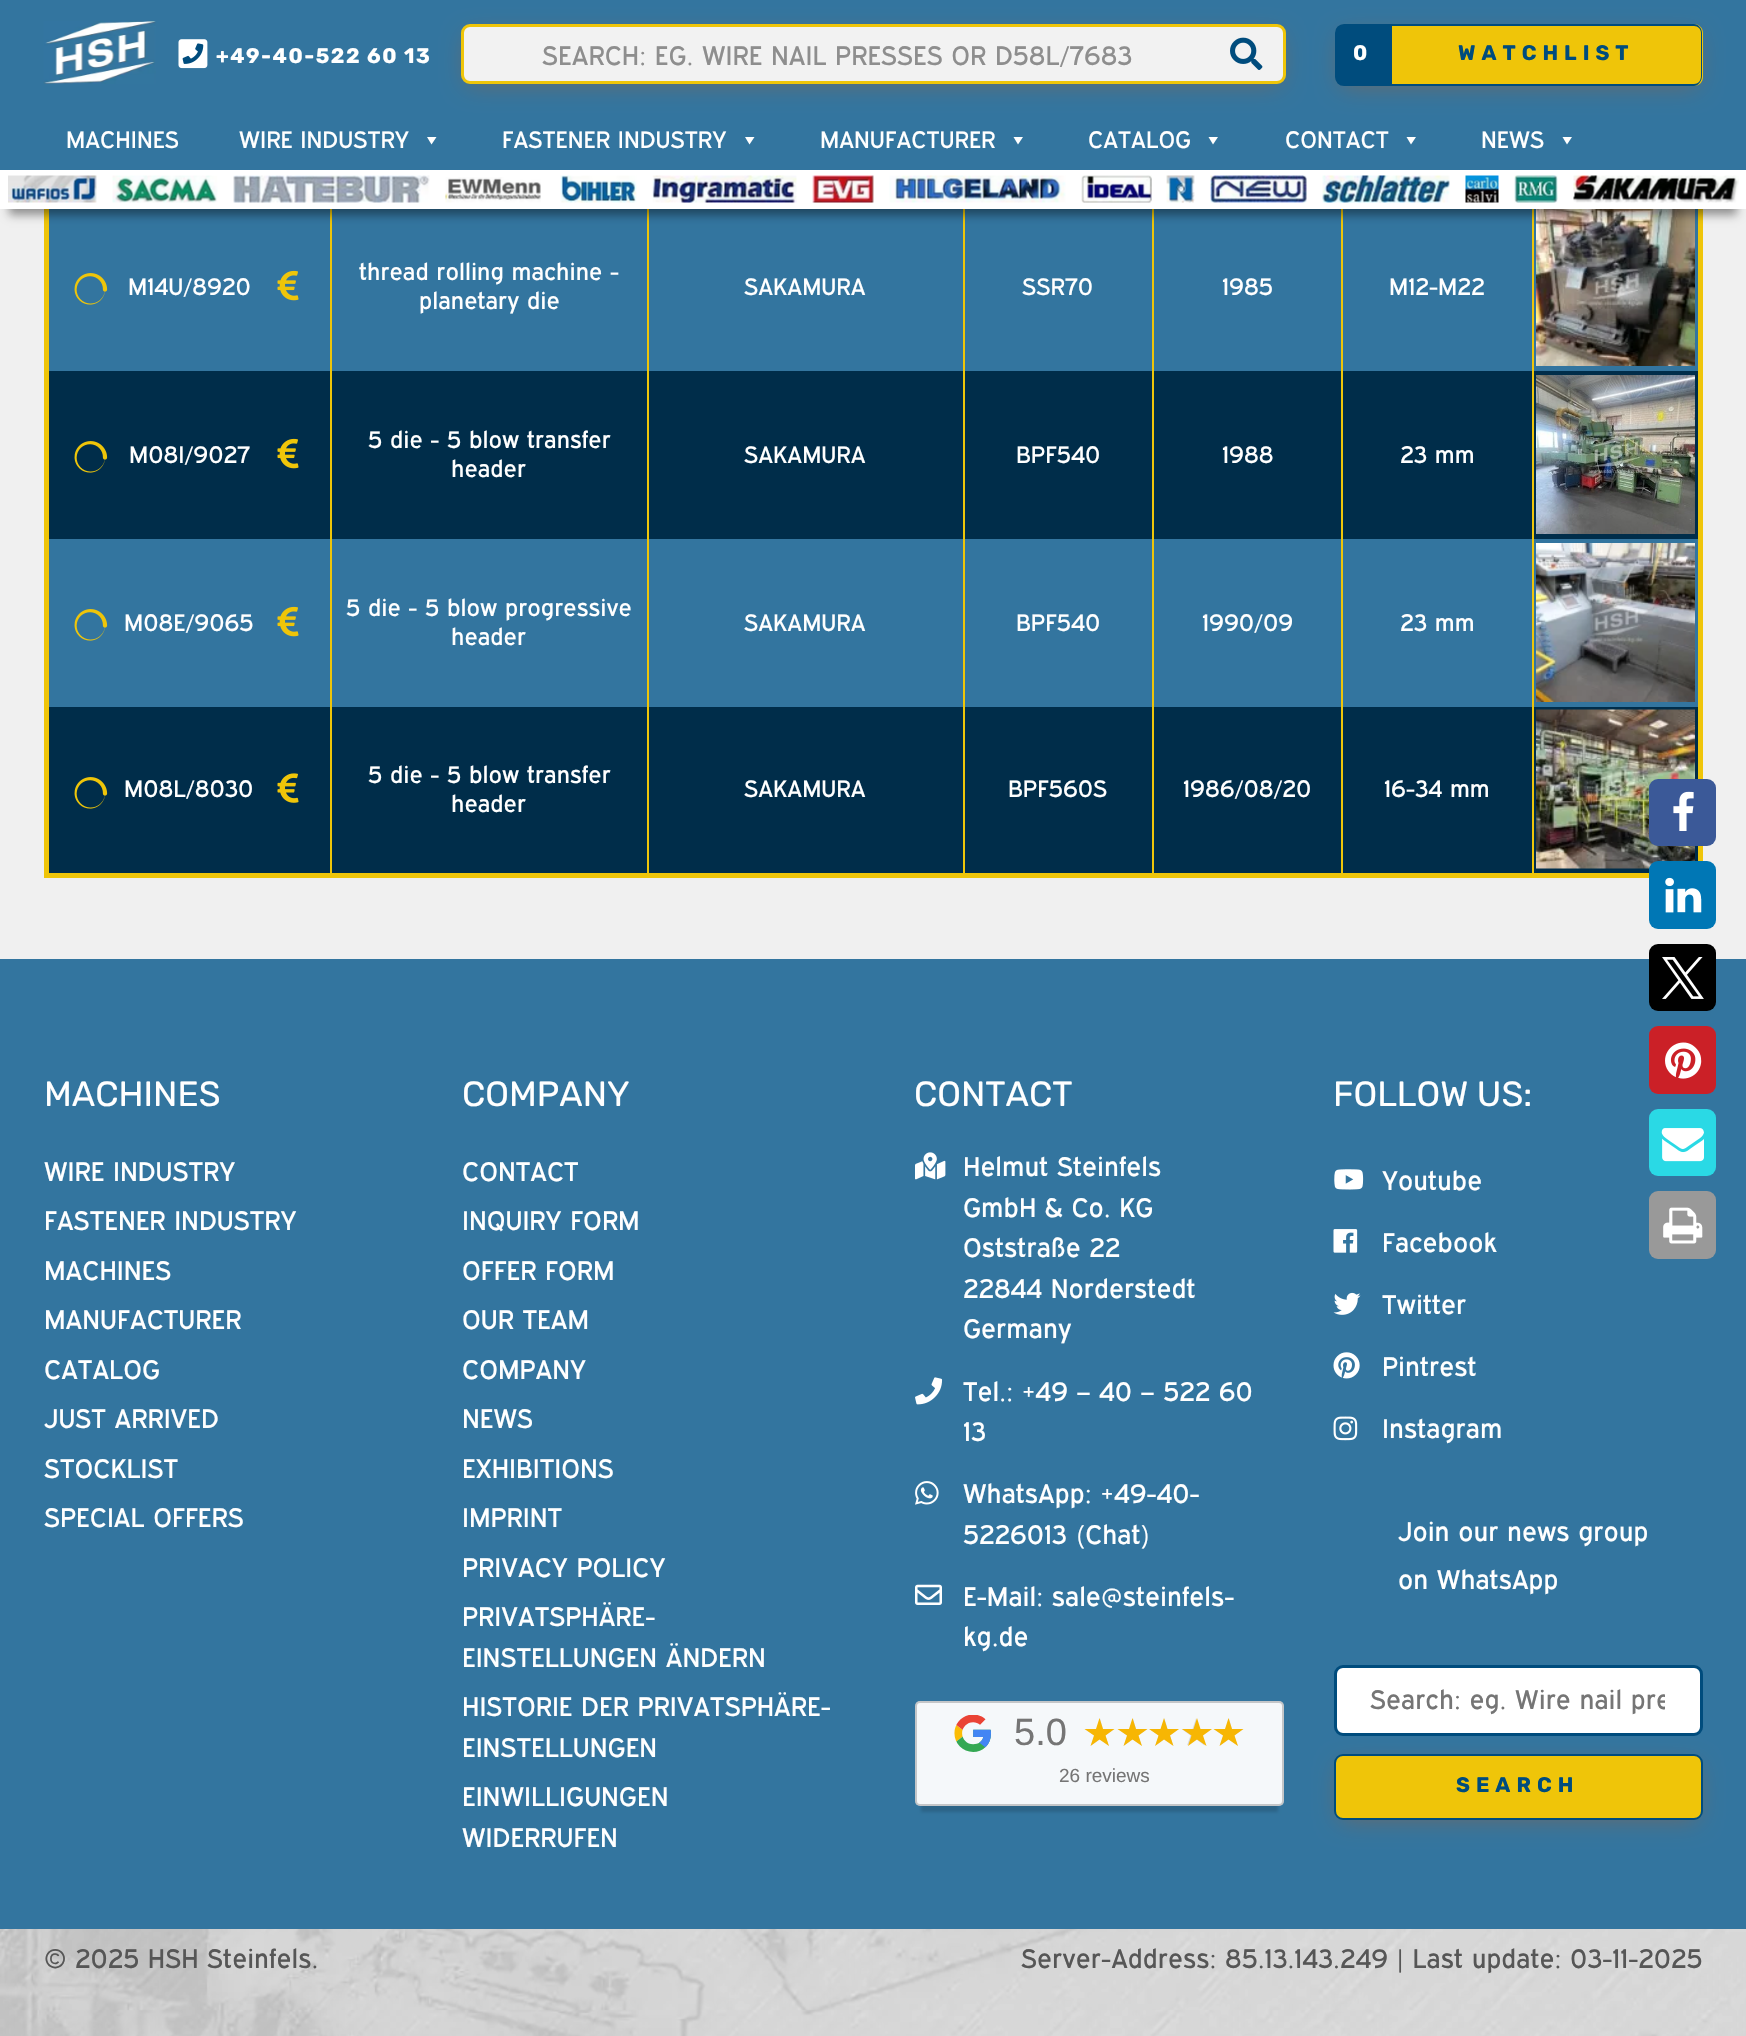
void draw(SkCanvas* canvas) {
  SkPaint paint;
  paint.setAntiAlias(true);
  auto face = [&](const char* family, int weight, float size, bool italic = false) {
    SkFontStyle style(weight, SkFontStyle::kNormal_Width,
      italic ? SkFontStyle::kItalic_Slant : SkFontStyle::kUpright_Slant);
    SkFont result(fontMgr->matchFamilyStyle(family, style), size);
    result.setSubpixel(true);
    return result;
  };
  auto writeSpaced = [&](const char* s, float x, float y, const SkFont& font, const SkPaint& ink, float letter, float word) {
    std::vector<SkGlyphID> glyphs(font.countText(s, strlen(s), SkTextEncoding::kUTF8));
    std::vector<float> xs(glyphs.size());
    font.textToGlyphs(s, strlen(s), SkTextEncoding::kUTF8, glyphs);
    font.getXPos(glyphs, xs, x);
    float extra = 0;
    for (size_t i = 0; i < glyphs.size(); i++) {
      xs[i] += extra;
      extra += letter + word * (glyphs[i] == font.unicharToGlyph(' '));
    }
    canvas->drawTextBlob(SkTextBlob::MakeFromPosHGlyphs(glyphs, xs, y, font), 0, 0, ink);
  };
  auto paste = [&](const char* path, float x, float y, float w, float h) {
    auto image = SkImages::DeferredFromEncodedData(SkData::MakeFromFileName(path));
    canvas->drawImageRect(image, SkRect::MakeXYWH(x, y, w, h), SkSamplingOptions());
  };
  auto shape = [&](const char* data, bool evenOdd = false) {
    SkPath result = *SkParsePath::FromSVGString(data);
    if (evenOdd) result.setFillType(SkPathFillType::kEvenOdd);
    return result;
  };
  canvas->clear(0xffffffff);
  paste("img/1.png", 0, 1929, 1746, 107);
  {
    const struct { float x, y, w, h; SkColor color; } items[] = {
      {0, 209, 1746, 750, 0xfff0f0f0},
      {1698, 209, 5, 652, 0xffefc509},
      {49, 209, 1649, 162, 0xff33759f},
      {49, 371, 1649, 168, 0xff002d4a},
      {49, 539, 1649, 168, 0xff33759f},
      {49, 707, 1649, 166, 0xff002d4a},
      {330, 203, 2, 673, 0xffefc509},
      {647, 203, 2, 673, 0xffefc509},
      {963, 203, 2, 673, 0xffefc509},
      {1152, 203, 2, 673, 0xffefc509},
      {1341, 203, 2, 673, 0xffefc509},
      {1532, 203, 2, 673, 0xffefc509},
      {44, 873, 1605, 5, 0xffefc509},
      {44, 209, 5, 669, 0xffefc509},
    };
    for (auto [x, y, w, h, color] : items) {
      paint.setColor(color);
      canvas->drawRect(SkRect::MakeXYWH(x, y, w, h), paint);
    }
  }
  paste("img/22.png", 1536, 209, 159, 157);
  paint.setColor(0x66000000);
  paint.setMaskFilter(SkMaskFilter::MakeBlur(kNormal_SkBlurStyle, 4.5f));
  canvas->drawRect(SkRect::MakeXYWH(9, 24, 1728, 191), paint);
  paint.setMaskFilter(nullptr);
  paint.setColor(0xff33759f);
  canvas->drawRect(SkRect::MakeXYWH(0, 0, 1746, 170), paint);
  paste("img/2.png", 43, 21, 113, 63);
  paint.setColor(0xff004c7d);
  canvas->drawRect(SkRect::MakeXYWH(182, 44, 22, 20), paint);
  paste("img/3.png", 178, 39, 30, 30);
  paint.setColor(0xff696969);
  paint.setMaskFilter(SkMaskFilter::MakeBlur(kNormal_SkBlurStyle, 12));
  canvas->drawRoundRect(SkRect::MakeXYWH(467, 36, 813, 48), 3, 3, paint);
  paint.setMaskFilter(nullptr);
  paint.setColor(0xfff2f2f2);
  canvas->drawRoundRect(SkRect::MakeXYWH(462.5f, 25.5f, 822, 57), 7.5f, 7.5f, paint);
  paint.setStroke(true);
  paint.setStrokeWidth(3);
  paint.setColor(0xffefc509);
  canvas->drawRoundRect(SkRect::MakeXYWH(462.5f, 25.5f, 822, 57), 7.5f, 7.5f, paint);
  paste("img/4.png", 1230, 37, 33, 33);
  paint.setStroke(false);
  paint.setColor(0xff696969);
  paint.setMaskFilter(SkMaskFilter::MakeBlur(kNormal_SkBlurStyle, 12));
  canvas->drawRoundRect(SkRect::MakeXYWH(1341, 36, 356, 50), 3, 3, paint);
  paint.setMaskFilter(nullptr);
  paint.setColor(0xff004c7d);
  canvas->drawPath(shape("M1344 25H1391V85H1344C1339.5 85 1336 81.5 1336 77V33C1336 28.5 1339.5 25 1344 25Z"), paint);
  paint.setStroke(true);
  paint.setStrokeWidth(2);
  canvas->drawPath(shape("M1344 25H1391V85H1344C1339.5 85 1336 81.5 1336 77V33C1336 28.5 1339.5 25 1344 25Z"), paint);
  paint.setStroke(false);
  paint.setColor(0xffefc509);
  canvas->drawPath(shape("M1392 24H1694C1699 24 1703 28 1703 33V77C1703 82 1699 86 1694 86H1392Z"), paint);
  paint.setColor(0xff004c7d);
  canvas->drawPath(shape("M1392 24H1694C1698 24 1702 28 1702 33V76C1702 81 1698 86 1694 86H1392ZM1392 26H1694C1698 26 1701 29 1701 33V76C1701 81 1698 84 1694 84H1392Z", true), paint);
  paint.setColor(0xffffffff);
  canvas->drawPath(shape("M436.5 137L431.5 144.5L427 137Z"), paint);
  canvas->drawPath(shape("M754.5 137L749.5 144.5L745 137Z"), paint);
  canvas->drawPath(shape("M1023 137L1018 144.5L1013.5 137Z"), paint);
  canvas->drawPath(shape("M1218 137L1213 144.5L1208.5 137Z"), paint);
  canvas->drawPath(shape("M1416 137L1411 144.5L1406.5 137Z"), paint);
  canvas->drawPath(shape("M1572 137L1567 144.5L1562.5 137Z"), paint);
  canvas->drawRect(SkRect::MakeXYWH(0, 170, 1746, 39), paint);
  paste("img/5.png", 8, 175, 89, 28);
  paste("img/6.png", 112, 175, 106, 28);
  paste("img/7.png", 233, 175, 197, 28);
  paste("img/8.png", 445, 177, 96, 26);
  paste("img/9.png", 560, 175, 77, 28);
  paste("img/10.png", 652, 175, 145, 28);
  paste("img/11.png", 812, 175, 62, 28);
  paste("img/12.png", 889, 175, 177, 28);
  paste("img/13.png", 1081, 175, 71, 28);
  paste("img/14.png", 1166, 175, 29, 28);
  paste("img/15.png", 1210, 175, 97, 28);
  paste("img/16.png", 1322, 175, 128, 28);
  paste("img/17.png", 1465, 175, 34, 28);
  paste("img/18.png", 1514, 175, 44, 28);
  paste("img/19.png", 1573, 175, 166, 28);
  paste("img/20.png", 74, 273, 34, 32);
  paste("img/21.png", 277, 270, 22, 31);
  paste("img/23.png", 74, 441, 34, 32);
  paste("img/24.png", 277, 438, 22, 31);
  paste("img/25.png", 1536, 375, 159, 159);
  paste("img/20.png", 74, 609, 34, 32);
  paste("img/21.png", 277, 606, 22, 31);
  paste("img/26.png", 1536, 543, 159, 159);
  paste("img/23.png", 74, 777, 34, 32);
  paste("img/27.png", 277, 773, 22, 30);
  paste("img/28.png", 1536, 709, 159, 160);
  paint.setColor(0xff33759f);
  canvas->drawRect(SkRect::MakeXYWH(0, 959, 1746, 970), paint);
  paint.setColor(0xff3b5998);
  canvas->drawRoundRect(SkRect::MakeXYWH(1649, 779, 67, 67), 9, 9, paint);
  paste("img/29.png", 1673, 791, 21, 40);
  paint.setColor(0xff0077b5);
  canvas->drawRoundRect(SkRect::MakeXYWH(1649, 861, 67, 68), 9, 9, paint);
  paste("img/30.png", 1665, 877, 37, 36);
  paint.setColor(0xff000000);
  canvas->drawRoundRect(SkRect::MakeXYWH(1649, 944, 67, 67), 9, 9, paint);
  paste("img/31.png", 1662, 957, 42, 42);
  paint.setColor(0xffcb2027);
  canvas->drawRoundRect(SkRect::MakeXYWH(1649, 1026, 67, 68), 9, 9, paint);
  paste("img/32.png", 1665, 1042, 37, 37);
  paint.setColor(0xff2ad9e5);
  canvas->drawRoundRect(SkRect::MakeXYWH(1649, 1109, 67, 67), 9, 9, paint);
  paste("img/33.png", 1661, 1128, 44, 34);
  paint.setColor(0xff999999);
  canvas->drawRoundRect(SkRect::MakeXYWH(1649, 1191, 67, 68), 9, 9, paint);
  paste("img/34.png", 1663, 1207, 40, 37);
  paste("img/35.png", 915, 1152, 31, 28);
  paste("img/36.png", 915, 1377, 28, 28);
  paste("img/37.png", 915, 1481, 24, 24);
  paste("img/38.png", 915, 1584, 27, 21);
  paint.setColor(0x26000000);
  paint.setMaskFilter(SkMaskFilter::MakeBlur(kNormal_SkBlurStyle, 1.5f));
  canvas->drawRect(SkRect::MakeXYWH(921, 1719, 357, 93), paint);
  paint.setMaskFilter(nullptr);
  paint.setColor(0xfff5f8fa);
  canvas->drawRoundRect(SkRect::MakeXYWH(915, 1701, 369, 105), 5, 5, paint);
  paint.setStroke(true);
  paint.setColor(0x33000000);
  canvas->drawRoundRect(SkRect::MakeXYWH(916, 1702, 367, 103), 4, 4, paint);
  paste("img/39.png", 954, 1715, 37, 37);
  paint.setStroke(false);
  paint.setColor(0xffd8d9da);
  canvas->drawPath(shape("M1105.5 1735.5L1114 1729H1103L1100 1718.5L1096.5 1729H1085.5L1094.5 1735.5L1091 1745.5L1100 1739L1108.5 1745.5ZM1138 1735.5L1147 1729H1136L1133 1718.5L1129.5 1729H1118.5L1127.5 1735.5L1124 1745.5L1133 1739L1141.5 1745.5Z"), paint);
  paint.setColor(0xfff7b603);
  canvas->drawPath(shape("M1105.5 1735.5L1114.5 1729H1103L1099.5 1718L1096 1729H1084.5L1094 1735.5L1090.5 1746L1099.5 1739.5L1109 1746ZM1138.5 1735.5L1147.5 1729H1136L1132.5 1718L1129 1729H1117.5L1127 1735.5L1123.5 1746L1132.5 1739.5L1142 1746Z"), paint);
  paint.setColor(0xffd8d9da);
  canvas->drawPath(shape("M1170 1735.5L1178.5 1729H1167.5L1164.5 1718.5L1161 1729H1150L1159 1735.5L1155.5 1745.5L1164.5 1739L1173 1745.5ZM1201.5 1735.5L1210 1729H1199L1196 1718.5L1192.5 1729H1181.5L1190.5 1735.5L1187 1745.5L1196 1739L1204.5 1745.5Z"), paint);
  paint.setColor(0xfff7b603);
  canvas->drawPath(shape("M1170 1735.5L1179 1729H1167.5L1164 1718L1160.5 1729H1149L1158.5 1735.5L1155 1746L1164 1739.5L1173.5 1746ZM1203 1735.5L1212 1729H1200.5L1197 1718L1193.5 1729H1182L1191.5 1735.5L1188 1746L1197 1739.5L1206.5 1746Z"), paint);
  paint.setColor(0xffd8d9da);
  canvas->drawPath(shape("M1234 1735.5L1243 1729H1232L1229 1718.5L1225.5 1729H1214.5L1223.5 1735.5L1220 1745.5L1229 1739L1237.5 1745.5Z"), paint);
  paint.setColor(0xfff7b603);
  canvas->drawPath(shape("M1234.5 1735.5L1243.5 1729H1232L1228.5 1718L1225 1729H1213.5L1223 1735.5L1219.5 1746L1228.5 1739.5L1238 1746Z"), paint);
  paste("img/40.png", 1334, 1169, 30, 21);
  paste("img/41.png", 1333, 1229, 25, 24);
  paste("img/42.png", 1333, 1292, 28, 23);
  paste("img/43.png", 1333, 1352, 27, 27);
  paste("img/44.png", 1333, 1416, 25, 25);
  paint.setColor(0xffffffff);
  canvas->drawRoundRect(SkRect::MakeXYWH(1335.5f, 1666.5f, 366, 68), 7.5f, 7.5f, paint);
  paint.setStroke(true);
  paint.setStrokeWidth(3);
  paint.setColor(0xff004c7d);
  canvas->drawRoundRect(SkRect::MakeXYWH(1335.5f, 1666.5f, 366, 68), 7.5f, 7.5f, paint);
  paint.setStroke(false);
  paint.setColor(0xff696969);
  paint.setMaskFilter(SkMaskFilter::MakeBlur(kNormal_SkBlurStyle, 12));
  canvas->drawRoundRect(SkRect::MakeXYWH(1340, 1766, 357, 54), 3, 3, paint);
  paint.setMaskFilter(nullptr);
  paint.setColor(0xffefc509);
  canvas->drawRoundRect(SkRect::MakeXYWH(1335, 1755, 367, 64), 8, 8, paint);
  paint.setStroke(true);
  paint.setStrokeWidth(2);
  paint.setColor(0xff004c7d);
  canvas->drawRoundRect(SkRect::MakeXYWH(1335, 1755, 367, 64), 8, 8, paint);
  auto f0 = face("Rubik", 700, 21);
  paint.setStroke(false);
  paint.setColor(0xffffffff);
  writeSpaced("+49-40-522 60 13", 216, 63, f0, paint, 1.5f, 0);
  auto f1 = face("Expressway", 400, 27);
  paint.setColor(0xff8e8e8e);
  canvas->drawString("SEARCH: EG. WIRE NAIL PRESSES OR D58L/7683", 542, 65, f1, paint);
  paint.setColor(0xffffffff);
  writeSpaced("0", 1353, 60, f0, paint, 6, 0);
  paint.setColor(0xff004c7d);
  writeSpaced("WATCHLIST", 1458, 60, f0, paint, 6, 0);
  auto f2 = face("Expressway", 400, 24);
  paint.setColor(0xffffffff);
  {
    const struct { const char* s; float x, y; } items[] = {
      {"MACHINES", 66, 148},
      {"WIRE INDUSTRY", 239, 148},
      {"FASTENER INDUSTRY", 502, 148},
      {"MANUFACTURER", 820, 148},
      {"CATALOG", 1088, 148},
      {"CONTACT", 1285, 148},
      {"NEWS", 1481, 148},
      {"M14U/8920", 128, 295},
      {"thread rolling machine -", 359, 280},
      {"planetary die", 419, 309},
      {"SAKAMURA", 744, 295},
      {"SSR70", 1022, 295},
      {"1985", 1222, 295},
      {"M12-M22", 1389, 295},
      {"M08I/9027", 129, 463},
      {"5 die - 5 blow transfer", 368, 448},
      {"header", 451, 477},
      {"SAKAMURA", 744, 463},
      {"BPF540", 1016, 463},
      {"1988", 1222, 463},
      {"23 mm", 1400, 463},
      {"M08E/9065", 124, 631},
      {"5 die - 5 blow progressive", 346, 616},
      {"header", 451, 645},
      {"SAKAMURA", 744, 631},
      {"BPF540", 1016, 631},
      {"1990/09", 1202, 631},
      {"23 mm", 1400, 631},
      {"M08L/8030", 124, 797},
      {"5 die - 5 blow transfer", 368, 783},
      {"header", 451, 812},
      {"SAKAMURA", 744, 797},
      {"BPF560S", 1008, 797},
      {"1986/08/20", 1183, 797},
      {"16-34 mm", 1384, 797},
    };
    for (auto [s, x, y] : items) {
      canvas->drawString(s, x, y, f2, paint);
    }
  }
  auto f3 = face("Rubik", 400, 35);
  canvas->drawString("MACHINES", 44, 1106, f3, paint);
  {
    const struct { const char* s; float x, y; } items[] = {
      {"WIRE INDUSTRY", 44, 1181},
      {"FASTENER INDUSTRY", 44, 1230},
      {"MACHINES", 44, 1280},
      {"MANUFACTURER", 44, 1329},
      {"CATALOG", 44, 1379},
      {"JUST ARRIVED", 44, 1428},
      {"STOCKLIST", 44, 1478},
      {"SPECIAL OFFERS", 44, 1527},
    };
    for (auto [s, x, y] : items) {
      canvas->drawString(s, x, y, f1, paint);
    }
  }
  canvas->drawString("COMPANY", 462, 1106, f3, paint);
  {
    const struct { const char* s; float x, y; } items[] = {
      {"CONTACT", 462, 1181},
      {"INQUIRY FORM", 462, 1230},
      {"OFFER FORM", 462, 1280},
      {"OUR TEAM", 462, 1329},
      {"COMPANY", 462, 1379},
      {"NEWS", 462, 1428},
      {"EXHIBITIONS", 462, 1478},
      {"IMPRINT", 462, 1527},
      {"PRIVACY POLICY", 462, 1577},
      {"PRIVATSPHÄRE-", 462, 1626},
      {"EINSTELLUNGEN ÄNDERN", 462, 1667},
      {"HISTORIE DER PRIVATSPHÄRE-", 462, 1716},
      {"EINSTELLUNGEN", 462, 1757},
      {"EINWILLIGUNGEN", 462, 1806},
      {"WIDERRUFEN", 462, 1847},
    };
    for (auto [s, x, y] : items) {
      canvas->drawString(s, x, y, f1, paint);
    }
  }
  canvas->drawString("CONTACT", 914, 1106, f3, paint);
  {
    const struct { const char* s; float x, y; } items[] = {
      {"Helmut Steinfels", 963, 1176},
      {"GmbH & Co. KG", 963, 1217},
      {"Oststraße 22", 963, 1257},
      {"22844 Norderstedt", 963, 1298},
      {"Germany", 963, 1338},
      {"Tel.: +49 – 40 – 522 60", 963, 1401},
      {"13", 963, 1441},
      {"WhatsApp: +49-40-", 963, 1503},
      {"5226013 (Chat)", 963, 1544},
      {"E-Mail: sale@steinfels-", 963, 1606},
      {"kg.de", 963, 1646},
    };
    for (auto [s, x, y] : items) {
      canvas->drawString(s, x, y, f1, paint);
    }
  }
  auto f4 = face("Liberation Sans", 400, 38);
  paint.setColor(0xff757575);
  canvas->drawString("5.0", 1014, 1745, f4, paint);
  auto f5 = face("Liberation Sans", 400, 19);
  canvas->drawString("26 reviews", 1059, 1782, f5, paint);
  paint.setColor(0xffffffff);
  canvas->drawString("FOLLOW US:", 1333, 1106, f3, paint);
  {
    const struct { const char* s; float x, y; } items[] = {
      {"Youtube", 1382, 1190},
      {"Facebook", 1382, 1252},
      {"Twitter", 1382, 1314},
      {"Pintrest", 1382, 1376},
      {"Instagram", 1382, 1438},
      {"Join our news group", 1398, 1541},
      {"on WhatsApp", 1398, 1589},
    };
    for (auto [s, x, y] : items) {
      canvas->drawString(s, x, y, f1, paint);
    }
  }
  canvas->save();
  canvas->clipRect(SkRect::MakeXYWH(1370, 1685, 295, 31));
  paint.setColor(0xff757575);
  canvas->drawString("Search: eg. Wire nail pre", 1370, 1709, f1, paint);
  canvas->restore();
  paint.setColor(0xff004c7d);
  writeSpaced("SEARCH", 1456, 1792, f0, paint, 6, 0);
  paint.setColor(0xff565656);
  canvas->drawString("© 2025 HSH Steinfels.", 44, 1968, f1, paint);
  canvas->drawString("Server-Address: 85.13.143.249 | Last update: 03-11-2025", 1021, 1968, f1, paint);
}
